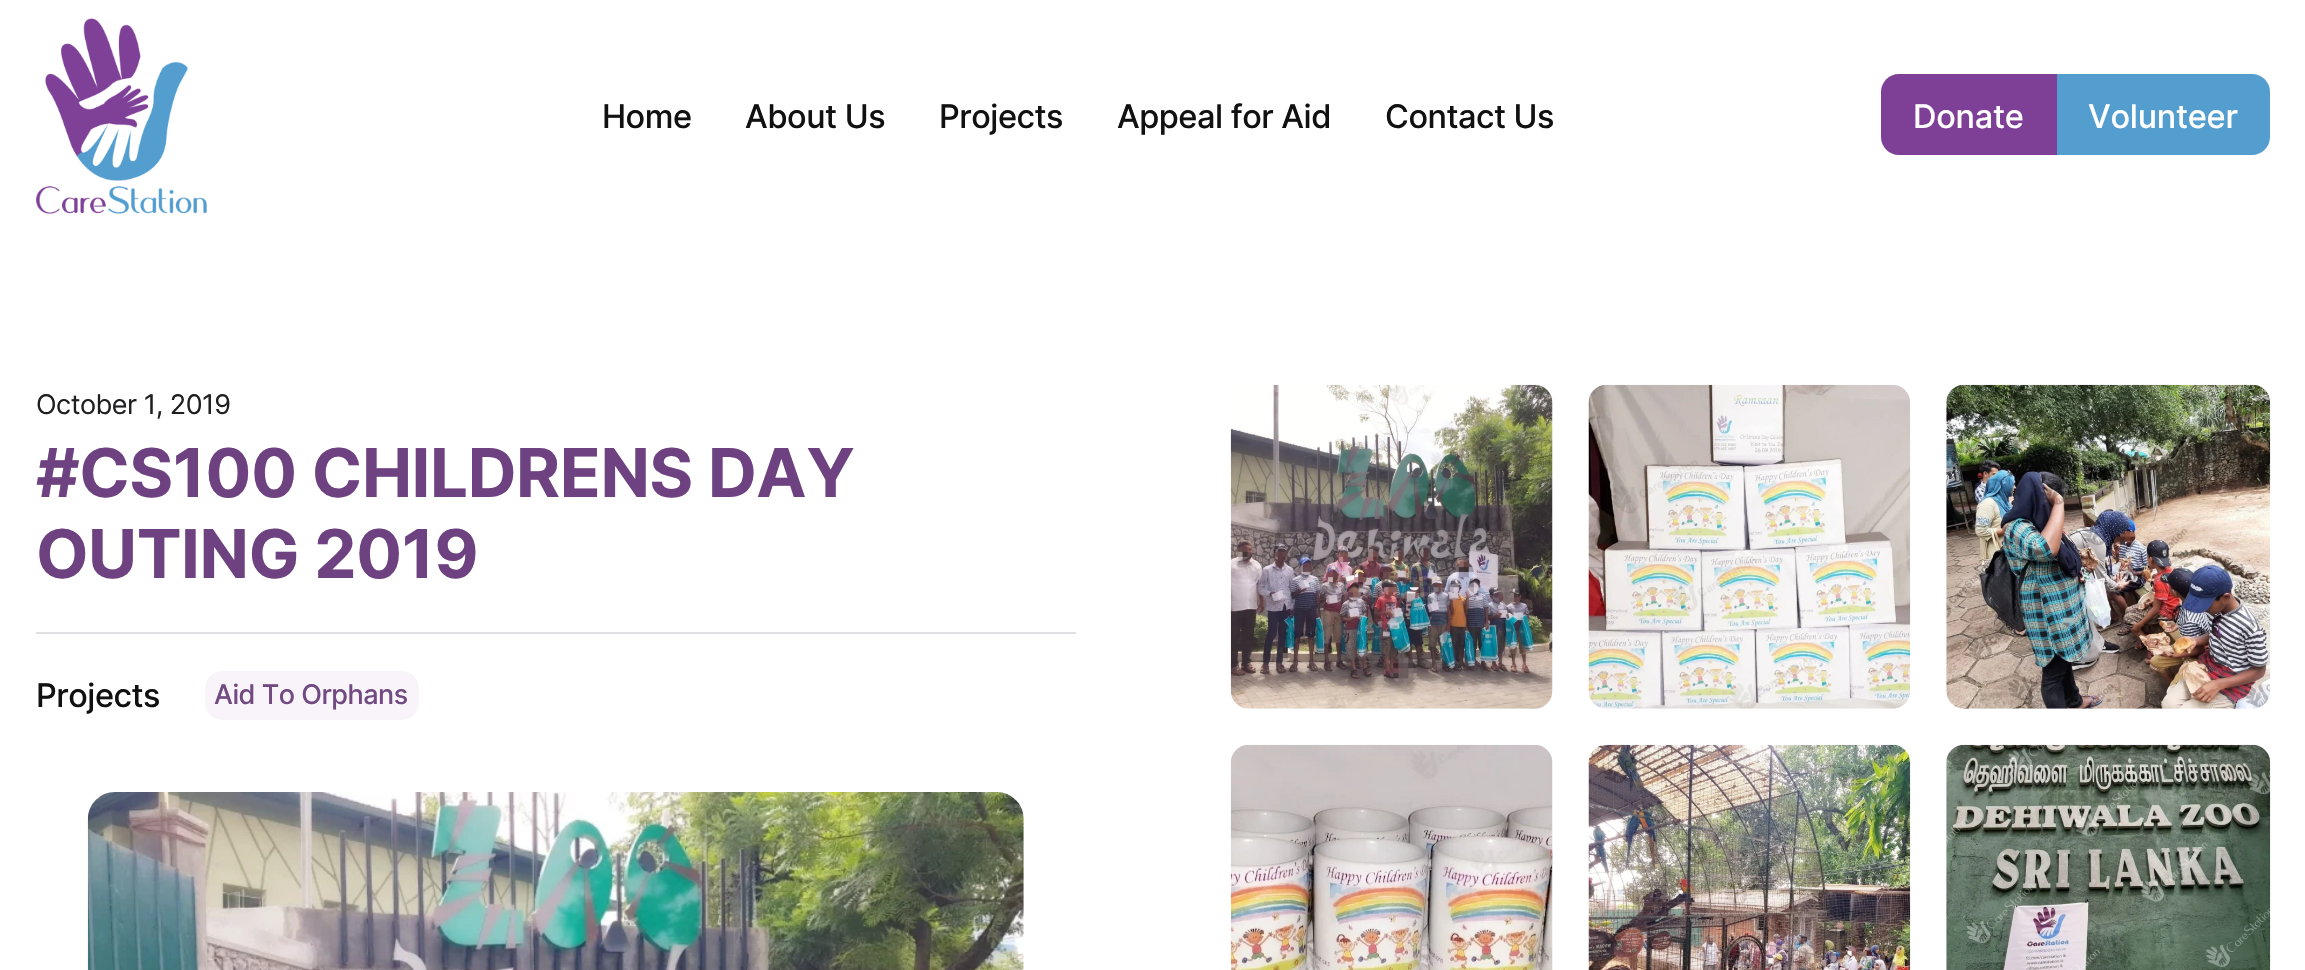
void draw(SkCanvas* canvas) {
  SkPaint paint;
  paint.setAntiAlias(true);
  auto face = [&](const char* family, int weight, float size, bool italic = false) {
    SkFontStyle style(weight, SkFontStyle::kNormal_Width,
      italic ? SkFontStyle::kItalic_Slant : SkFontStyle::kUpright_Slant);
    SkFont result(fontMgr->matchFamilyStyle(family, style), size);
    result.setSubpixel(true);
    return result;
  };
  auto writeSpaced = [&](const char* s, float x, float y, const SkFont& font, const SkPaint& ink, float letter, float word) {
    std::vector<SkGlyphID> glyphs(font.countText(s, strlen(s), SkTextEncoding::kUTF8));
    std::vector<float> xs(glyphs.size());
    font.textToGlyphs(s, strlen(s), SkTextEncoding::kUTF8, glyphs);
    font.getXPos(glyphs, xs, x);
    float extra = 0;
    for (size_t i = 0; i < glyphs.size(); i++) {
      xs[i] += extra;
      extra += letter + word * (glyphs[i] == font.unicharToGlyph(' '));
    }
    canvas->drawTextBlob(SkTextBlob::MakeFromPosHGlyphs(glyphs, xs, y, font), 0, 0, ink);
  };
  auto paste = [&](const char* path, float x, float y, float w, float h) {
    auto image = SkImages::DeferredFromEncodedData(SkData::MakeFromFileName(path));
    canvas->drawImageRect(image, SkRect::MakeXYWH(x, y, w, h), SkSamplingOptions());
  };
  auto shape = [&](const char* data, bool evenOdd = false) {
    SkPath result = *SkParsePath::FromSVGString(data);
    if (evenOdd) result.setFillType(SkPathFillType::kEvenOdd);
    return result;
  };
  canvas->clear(0xffffffff);
  paste("img/1.png", 36, 18, 171, 196);
  paint.setColor(0xff7e3f97);
  canvas->drawPath(shape("M1899 74H2057V155H1899C1889 155 1881 147 1881 137V92C1881 82 1889 74 1899 74Z"), paint);
  paint.setColor(0xff549ecf);
  canvas->drawPath(shape("M2057 74H2252C2262 74 2270 82 2270 92V137C2270 147 2262 155 2252 155H2057Z"), paint);
  paint.setColor(0xffe1dfe2);
  canvas->drawRect(SkRect::MakeXYWH(36, 632, 1040, 2), paint);
  paint.setColor(0xfff9f4fa);
  canvas->drawRoundRect(SkRect::MakeXYWH(205, 671, 214, 49), 18, 18, paint);
  paste("img/2.png", 87, 792, 937, 178);
  paste("img/3.png", 1230, 384, 323, 325);
  paste("img/4.png", 1588, 384, 323, 325);
  paste("img/5.png", 1946, 384, 325, 325);
  paste("img/6.png", 1230, 744, 323, 226);
  paste("img/7.png", 1588, 744, 323, 226);
  paste("img/8.png", 1946, 744, 325, 226);
  auto f0 = face("Inter", 500, 32.5f);
  paint.setColor(0xff121112);
  {
    const struct { const char* s; float x, y; } items[] = {
      {"Home", 602, 128},
      {"About Us", 745, 128},
      {"Projects", 939, 128},
      {"Appeal for Aid", 1117, 128},
      {"Contact Us", 1385, 128},
    };
    for (auto [s, x, y] : items) {
      writeSpaced(s, x, y, f0, paint, -0.5f, 0);
    }
  }
  paint.setColor(0xffffffff);
  writeSpaced("Donate", 1913, 128, f0, paint, -0.25f, 0);
  writeSpaced("Volunteer", 2088, 128, f0, paint, -0.25f, 0);
  auto f1 = face("Inter", 400, 27);
  paint.setColor(0xff1f1e20);
  writeSpaced("October 1, 2019", 36, 414, f1, paint, -0.5f, 0);
  auto f2 = face("Inter", 700, 67.25f);
  paint.setColor(0xff6e4280);
  writeSpaced("#CS100 CHILDRENS DAY", 36, 497, f2, paint, -0.5f, 0);
  writeSpaced("OUTING 2019", 36, 578, f2, paint, -0.5f, 0);
  paint.setColor(0xff121112);
  writeSpaced("Projects", 36, 707, f0, paint, -0.5f, 0);
  auto f3 = face("Inter", 500, 27);
  paint.setColor(0xff724a82);
  writeSpaced("Aid To Orphans", 214, 704, f3, paint, -0.5f, 0);
}
